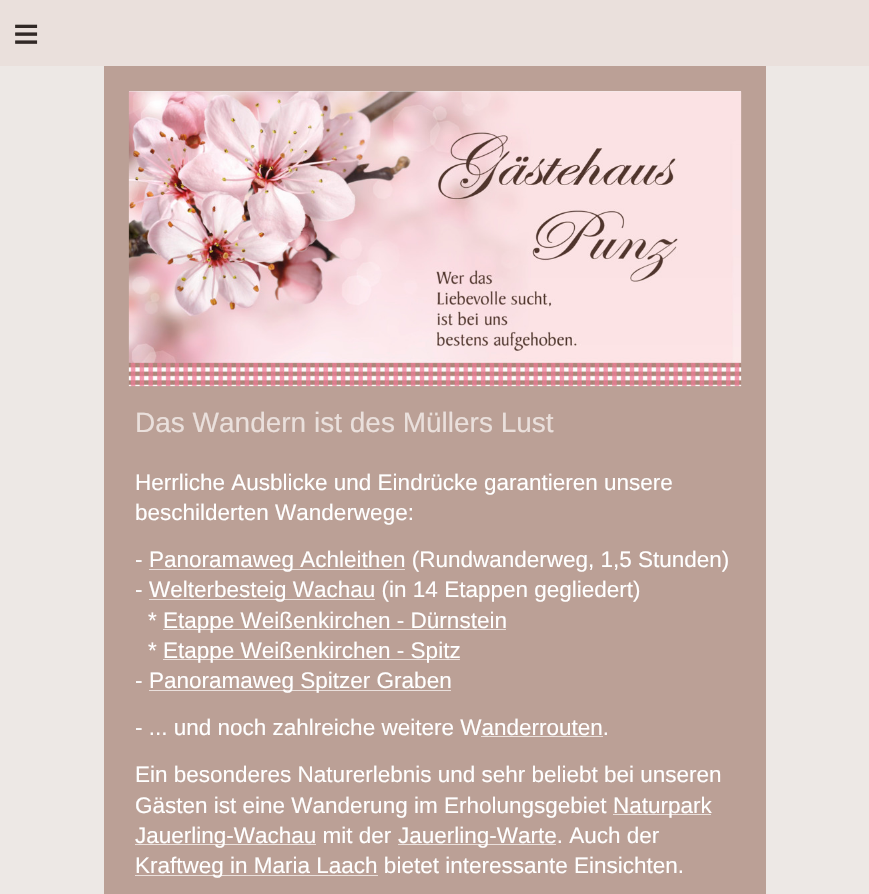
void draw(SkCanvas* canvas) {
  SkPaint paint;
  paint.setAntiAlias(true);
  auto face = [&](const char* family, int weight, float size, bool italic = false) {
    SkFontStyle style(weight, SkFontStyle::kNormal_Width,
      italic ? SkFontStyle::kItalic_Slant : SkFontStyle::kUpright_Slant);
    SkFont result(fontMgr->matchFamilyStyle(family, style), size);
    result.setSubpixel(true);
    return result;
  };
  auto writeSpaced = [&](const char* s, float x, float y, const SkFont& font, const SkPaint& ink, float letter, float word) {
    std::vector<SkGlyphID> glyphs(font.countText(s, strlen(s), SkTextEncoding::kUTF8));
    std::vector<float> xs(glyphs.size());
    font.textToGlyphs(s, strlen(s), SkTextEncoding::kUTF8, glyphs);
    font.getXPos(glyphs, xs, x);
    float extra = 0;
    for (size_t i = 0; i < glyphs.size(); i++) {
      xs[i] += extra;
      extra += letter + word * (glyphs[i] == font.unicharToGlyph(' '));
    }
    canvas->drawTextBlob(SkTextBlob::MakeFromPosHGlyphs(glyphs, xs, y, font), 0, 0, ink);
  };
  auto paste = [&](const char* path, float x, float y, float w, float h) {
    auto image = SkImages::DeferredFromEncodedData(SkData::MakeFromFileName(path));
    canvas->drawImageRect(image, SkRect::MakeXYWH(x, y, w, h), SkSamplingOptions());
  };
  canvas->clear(0xffede8e5);
  paint.setColor(0xffeae0dc);
  canvas->drawRect(SkRect::MakeXYWH(0, 0, 869, 66), paint);
  paint.setColor(0xffbba096);
  canvas->drawRect(SkRect::MakeXYWH(104, 66, 662, 828), paint);
  paste("img/1.png", 128, 91, 614, 296);
  paint.setColor(0xffeeeeee);
  canvas->drawRect(SkRect::MakeXYWH(129, 91, 612, 1), paint);
  paste("img/2.png", 128, 91, 614, 296);
  {
    const struct { float x, y, w, h; SkColor color; } items[] = {
      {149, 569, 256, 1, 0xffeae0dc},
      {149, 599, 226, 1, 0xffeae0dc},
      {163, 629, 343, 1, 0xffeae0dc},
      {163, 659, 297, 1, 0xffeae0dc},
      {149, 690, 302, 1, 0xffeae0dc},
      {481, 736, 122, 1, 0xffeae0dc},
      {613, 814, 98, 1, 0xffeae0dc},
      {135, 844, 181, 1, 0xffeae0dc},
      {398, 844, 158, 1, 0xffeae0dc},
      {135, 875, 243, 1, 0xffeae0dc},
    };
    for (auto [x, y, w, h, color] : items) {
      paint.setColor(color);
      canvas->drawRect(SkRect::MakeXYWH(x, y, w, h), paint);
    }
  }
  auto f0 = face("Liberation Sans", 400, 45);
  paint.setColor(0xff312926);
  writeSpaced("≡", 13, 49, f0, paint, 13, 0);
  auto f1 = face("Liberation Sans", 400, 28);
  paint.setColor(0xffeae0dc);
  canvas->drawString("Das Wandern ist des Müllers Lust", 135, 432, f1, paint);
  auto f2 = face("Liberation Sans", 400, 22.5f);
  paint.setColor(0xffffffff);
  {
    const struct { const char* s; float x, y; } items[] = {
      {"Herrliche Ausblicke und Eindrücke garantieren unsere", 135, 490},
      {"beschilderten Wanderwege:", 135, 520},
      {"-", 135, 567},
      {"Panoramaweg Achleithen (Rundwanderweg, 1,5 Stunden)", 149, 567},
      {"-", 135, 597},
      {"Welterbesteig Wachau (in 14 Etappen gegliedert)", 149, 597},
      {"*", 148, 628},
      {"Etappe Weißenkirchen - Dürnstein", 163, 628},
      {"*", 148, 658},
      {"Etappe Weißenkirchen - Spitz", 163, 658},
      {"-", 135, 688},
      {"Panoramaweg Spitzer Graben", 149, 688},
      {"- ... und noch zahlreiche weitere Wanderrouten.", 135, 735},
      {"Ein besonderes Naturerlebnis und sehr beliebt bei unseren", 135, 782},
      {"Gästen ist eine Wanderung im Erholungsgebiet", 135, 813},
      {"Naturpark", 613, 813},
      {"Jauerling-Wachau mit der", 135, 843},
      {"Jauerling-Warte. Auch der", 398, 843},
      {"Kraftweg in Maria Laach bietet interessante Einsichten.", 135, 873},
    };
    for (auto [s, x, y] : items) {
      canvas->drawString(s, x, y, f2, paint);
    }
  }
}
